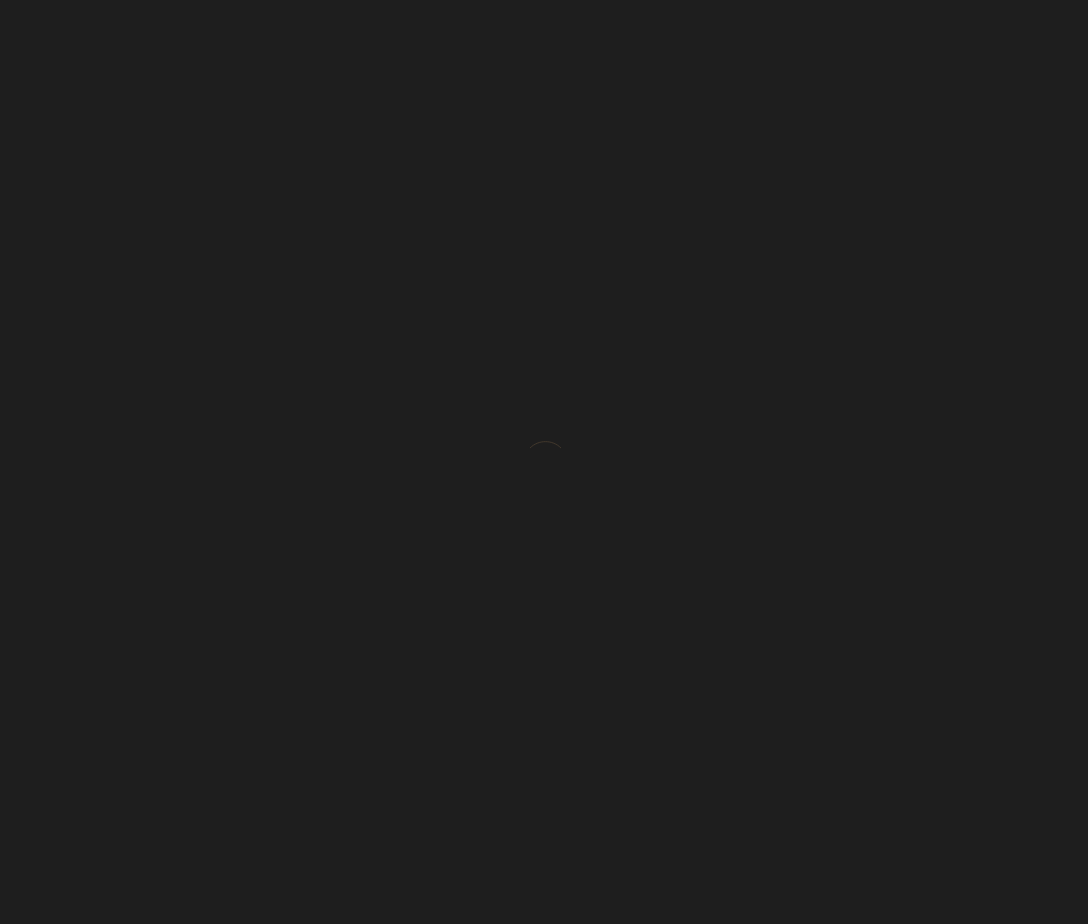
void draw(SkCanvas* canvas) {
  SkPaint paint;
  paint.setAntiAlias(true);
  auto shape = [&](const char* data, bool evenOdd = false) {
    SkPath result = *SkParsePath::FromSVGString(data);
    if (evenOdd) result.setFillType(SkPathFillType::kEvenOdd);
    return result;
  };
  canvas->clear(0xff1e1e1e);
  paint.setStroke(true);
  paint.setStrokeWidth(1);
  paint.setColor(0xff40362a);
  canvas->drawPath(shape("M530 448C538.5 439.5 552.5 439.5 561 448"), paint);
}
